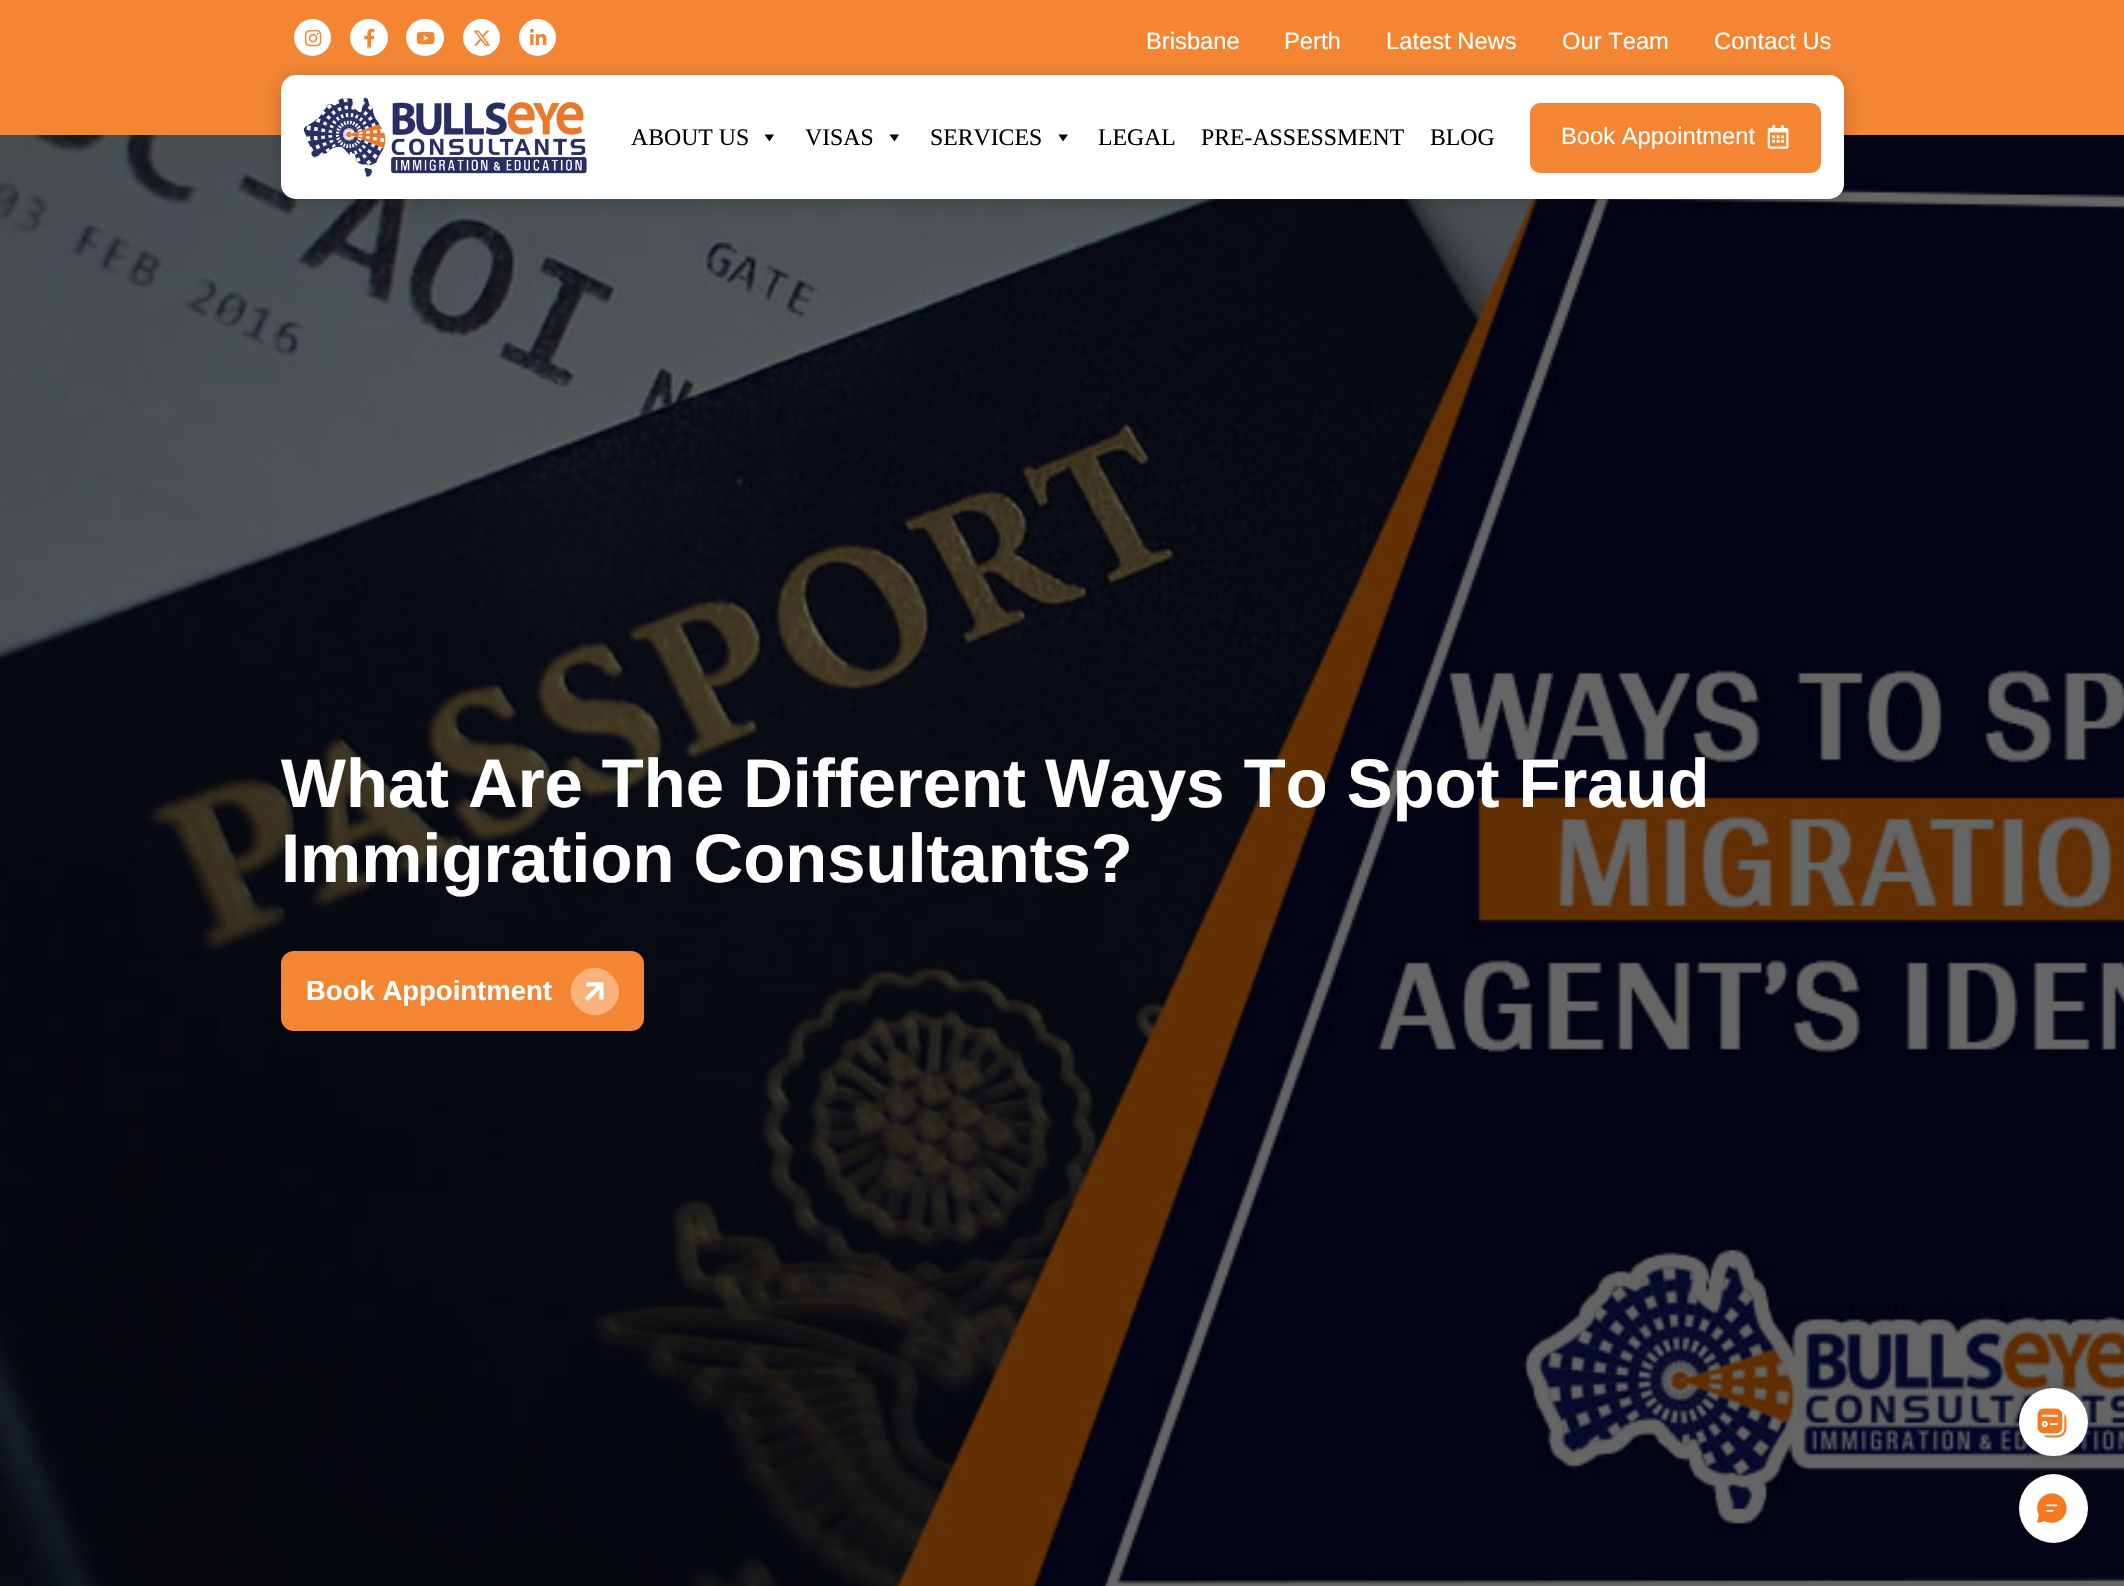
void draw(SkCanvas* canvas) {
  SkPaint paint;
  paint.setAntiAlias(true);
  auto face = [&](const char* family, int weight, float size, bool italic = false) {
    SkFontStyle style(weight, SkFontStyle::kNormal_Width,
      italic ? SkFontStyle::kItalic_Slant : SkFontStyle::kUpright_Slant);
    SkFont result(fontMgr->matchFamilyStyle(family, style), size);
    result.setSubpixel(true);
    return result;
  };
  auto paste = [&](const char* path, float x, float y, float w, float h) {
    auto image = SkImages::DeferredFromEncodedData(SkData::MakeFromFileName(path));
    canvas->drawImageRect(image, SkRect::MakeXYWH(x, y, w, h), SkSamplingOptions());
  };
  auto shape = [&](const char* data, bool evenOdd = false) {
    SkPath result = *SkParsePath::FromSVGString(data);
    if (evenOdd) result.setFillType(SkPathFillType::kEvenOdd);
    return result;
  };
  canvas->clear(0xfff48633);
  paint.setColor(0xffffffff);
  canvas->drawCircle(312.5f, 37.5f, 18.5f, paint);
  paste("img/1.png", 304, 30, 18, 17);
  canvas->drawRoundRect(SkRect::MakeXYWH(350, 19, 38, 37), 18.5f, 18.5f, paint);
  paste("img/2.png", 364, 29, 11, 19);
  canvas->drawRoundRect(SkRect::MakeXYWH(406, 19, 38, 37), 18.5f, 18.5f, paint);
  paste("img/3.png", 416, 31, 19, 14);
  canvas->drawCircle(481.5f, 37.5f, 18.5f, paint);
  paste("img/4.png", 473, 30, 18, 16);
  canvas->drawCircle(537.5f, 37.5f, 18.5f, paint);
  paste("img/5.png", 529, 29, 18, 17);
  paste("img/8.png", 0, 135, 2124, 1451);
  paint.setColor(0x36000000);
  paint.setMaskFilter(SkMaskFilter::MakeBlur(kNormal_SkBlurStyle, 9.5f));
  canvas->drawRoundRect(SkRect::MakeXYWH(281, 78, 1563, 123), 15, 15, paint);
  paint.setMaskFilter(nullptr);
  paint.setColor(0xffffffff);
  canvas->drawRoundRect(SkRect::MakeXYWH(281, 75, 1563, 124), 15, 15, paint);
  paste("img/6.png", 303, 96, 284, 81);
  paint.setColor(0xff000000);
  canvas->drawPath(shape("M774 134.5L769.5 141.5L764.5 134.5Z"), paint);
  canvas->drawPath(shape("M899 134.5L894.5 141.5L889.5 134.5Z"), paint);
  canvas->drawPath(shape("M1068 134.5L1063 141.5L1058.5 134.5Z"), paint);
  paint.setColor(0xfff48633);
  canvas->drawRoundRect(SkRect::MakeXYWH(1530, 103, 291, 70), 10, 10, paint);
  paste("img/7.png", 1767, 125, 22, 24);
  canvas->drawRoundRect(SkRect::MakeXYWH(281, 951, 363, 80), 13, 13, paint);
  paint.setColor(0xfff9b27c);
  canvas->drawPath(shape("M578 975C600 953 634 986 612 1008C589 1030 556 997 578 975Z"), paint);
  paste("img/9.png", 585, 982, 19, 19);
  paint.setColor(0x33000000);
  paint.setMaskFilter(SkMaskFilter::MakeBlur(kNormal_SkBlurStyle, 9.5f));
  canvas->drawRoundRect(SkRect::MakeXYWH(2019, 1388, 69, 68), 34, 34, paint);
  paint.setMaskFilter(nullptr);
  paint.setColor(0xffffffff);
  canvas->drawRoundRect(SkRect::MakeXYWH(2019, 1388, 69, 68), 34, 34, paint);
  paste("img/10.png", 2037, 1408, 30, 30);
  canvas->drawCircle(2053.5f, 1508.5f, 34.5f, paint);
  paste("img/11.png", 2037, 1493, 30, 30);
  auto f0 = face("Liberation Sans", 400, 23.75f);
  {
    const struct { const char* s; float x, y; } items[] = {
      {"Brisbane", 1146, 49},
      {"Perth", 1284, 49},
      {"Latest News", 1386, 49},
      {"Our Team", 1562, 49},
      {"Contact Us", 1714, 49},
    };
    for (auto [s, x, y] : items) {
      canvas->drawString(s, x, y, f0, paint);
    }
  }
  auto f1 = face("Liberation Serif", 400, 23.75f);
  paint.setColor(0xff000000);
  {
    const struct { const char* s; float x, y; } items[] = {
      {"ABOUT US", 631, 145},
      {"VISAS", 805, 145},
      {"SERVICES", 930, 145},
      {"LEGAL", 1098, 145},
      {"PRE-ASSESSMENT", 1201, 145},
      {"BLOG", 1430, 145},
    };
    for (auto [s, x, y] : items) {
      canvas->drawString(s, x, y, f1, paint);
    }
  }
  paint.setColor(0xffffffff);
  canvas->drawString("Book Appointment", 1561, 144, f0, paint);
  auto f2 = face("Liberation Sans", 700, 68.75f);
  canvas->drawString("What Are The Different Ways To Spot Fraud", 281, 807, f2, paint);
  canvas->drawString("Immigration Consultants?", 281, 882, f2, paint);
  auto f3 = face("Liberation Sans", 700, 27.5f);
  canvas->drawString("Book Appointment", 306, 1000, f3, paint);
}
